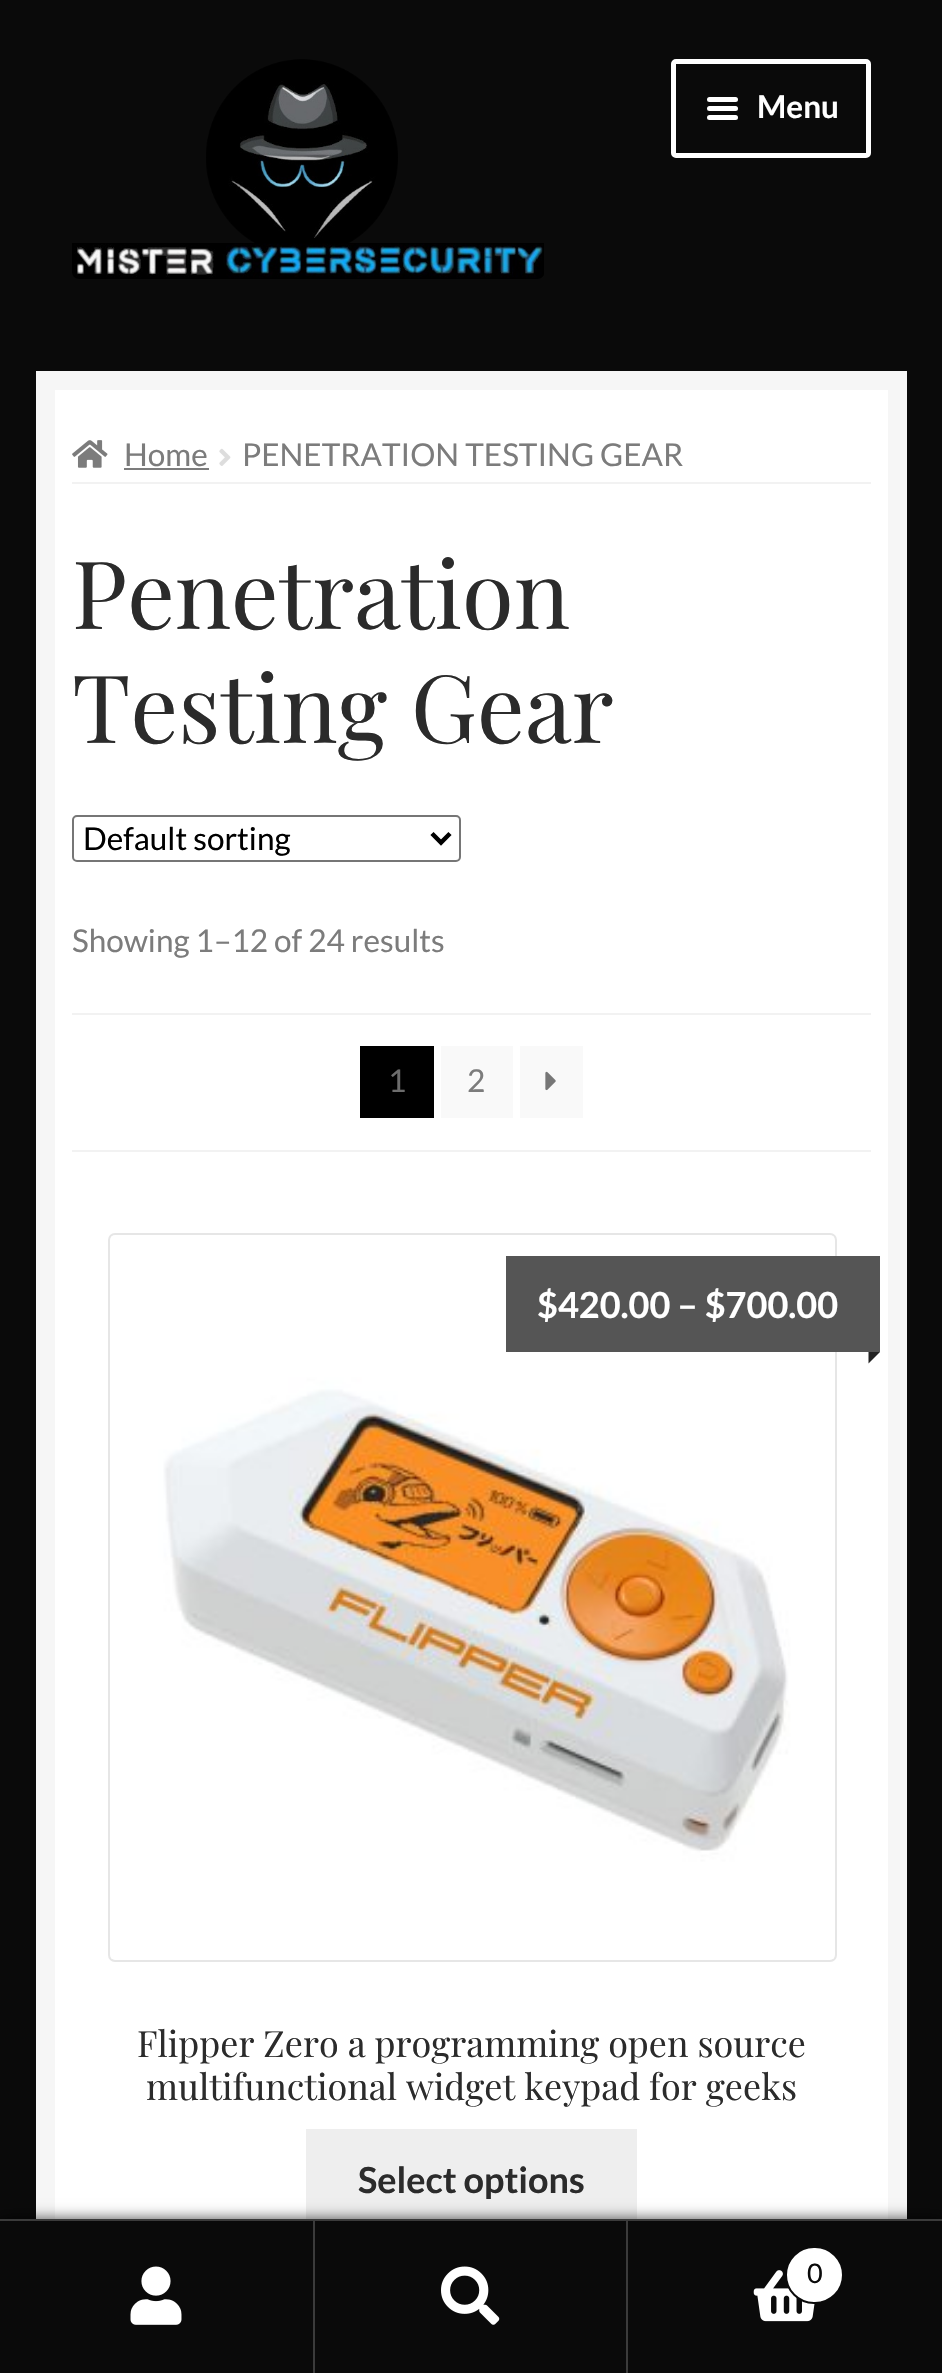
void draw(SkCanvas* canvas) {
  SkPaint paint;
  paint.setAntiAlias(true);
  auto face = [&](const char* family, int weight, float size, bool italic = false) {
    SkFontStyle style(weight, SkFontStyle::kNormal_Width,
      italic ? SkFontStyle::kItalic_Slant : SkFontStyle::kUpright_Slant);
    SkFont result(fontMgr->matchFamilyStyle(family, style), size);
    result.setSubpixel(true);
    return result;
  };
  auto paste = [&](const char* path, float x, float y, float w, float h) {
    auto image = SkImages::DeferredFromEncodedData(SkData::MakeFromFileName(path));
    canvas->drawImageRect(image, SkRect::MakeXYWH(x, y, w, h), SkSamplingOptions());
  };
  auto shape = [&](const char* data, bool evenOdd = false) {
    SkPath result = *SkParsePath::FromSVGString(data);
    if (evenOdd) result.setFillType(SkPathFillType::kEvenOdd);
    return result;
  };
  canvas->clear(0xff0a0a0a);
  paste("img/1.png", 72, 59, 472, 220);
  paint.setStroke(true);
  paint.setStrokeWidth(5);
  paint.setColor(0xffffffff);
  canvas->drawRoundRect(SkRect::MakeXYWH(673.5f, 61.5f, 195, 94), 2.5f, 2.5f, paint);
  paint.setStroke(false);
  canvas->drawRoundRect(SkRect::MakeXYWH(707, 97, 31, 5), 2.5f, 2.5f, paint);
  canvas->drawRoundRect(SkRect::MakeXYWH(707, 106, 31, 5), 2.5f, 2.5f, paint);
  canvas->drawRoundRect(SkRect::MakeXYWH(707, 115, 31, 5), 2.5f, 2.5f, paint);
  canvas->drawRect(SkRect::MakeXYWH(55, 390, 833, 1829), paint);
  paint.setStroke(true);
  paint.setStrokeWidth(19);
  paint.setColor(0xfff6f6f6);
  canvas->drawRect(SkRect::MakeXYWH(45.5f, 380.5f, 852, 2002), paint);
  paint.setStroke(false);
  paint.setColor(0xfff2f2f2);
  canvas->drawRect(SkRect::MakeXYWH(72, 482, 799, 2), paint);
  paste("img/2.png", 72, 440, 36, 28);
  paint.setColor(0xff7c7c7c);
  canvas->drawRect(SkRect::MakeXYWH(124, 468, 85, 2), paint);
  paste("img/3.png", 219, 448, 12, 18);
  paint.setStroke(true);
  paint.setStrokeWidth(2);
  paint.setColor(0xff767676);
  canvas->drawRoundRect(SkRect::MakeXYWH(73, 816, 387, 45), 4, 4, paint);
  paint.setStrokeWidth(4.5f);
  paint.setColor(0xff000000);
  canvas->drawPath(shape("M432 833.5L441 842.5L450 833.5"), paint);
  paint.setStroke(false);
  {
    const struct { float x, y, w, h; SkColor color; } items[] = {
      {72, 1013, 799, 2, 0xfff2f2f2},
      {72, 1150, 799, 2, 0xfff2f2f2},
      {360, 1046, 74, 72, 0xff000000},
      {441, 1046, 72, 72, 0xfff9f9f9},
      {520, 1046, 63, 72, 0xfff9f9f9},
    };
    for (auto [x, y, w, h, color] : items) {
      paint.setColor(color);
      canvas->drawRect(SkRect::MakeXYWH(x, y, w, h), paint);
    }
  }
  paste("img/4.png", 545, 1071, 11, 20);
  paint.setStroke(true);
  paint.setStrokeWidth(2);
  paint.setColor(0xffe6e6e6);
  canvas->drawRoundRect(SkRect::MakeXYWH(109, 1234, 727, 727), 6, 6, paint);
  paste("img/5.png", 111, 1236, 723, 723);
  paint.setStroke(false);
  paint.setColor(0xff555555);
  canvas->drawRect(SkRect::MakeXYWH(506, 1256, 374, 96), paint);
  paint.setColor(0xff222222);
  canvas->drawPath(shape("M868.5 1352H880L868.5 1363.5Z"), paint);
  paint.setColor(0xffeeeeee);
  canvas->drawRect(SkRect::MakeXYWH(306, 2129, 331, 90), paint);
  paint.setColor(0xb3000000);
  paint.setMaskFilter(SkMaskFilter::MakeBlur(kNormal_SkBlurStyle, 7));
  canvas->drawRect(SkRect::MakeXYWH(0, 2219, 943, 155), paint);
  paint.setMaskFilter(nullptr);
  {
    const struct { float x, y, w, h; SkColor color; } items[] = {
      {0, 2219, 942, 2, 0xff3b3b3b},
      {0, 2221, 313, 152, 0xff0a0a0a},
      {313, 2221, 2, 152, 0xff3b3b3b},
    };
    for (auto [x, y, w, h, color] : items) {
      paint.setColor(color);
      canvas->drawRect(SkRect::MakeXYWH(x, y, w, h), paint);
    }
  }
  paste("img/6.png", 130, 2266, 52, 59);
  paint.setColor(0xff0a0a0a);
  canvas->drawRect(SkRect::MakeXYWH(315, 2221, 311, 152), paint);
  paint.setColor(0xff3b3b3b);
  canvas->drawRect(SkRect::MakeXYWH(626, 2221, 2, 152), paint);
  paste("img/7.png", 441, 2266, 59, 59);
  paint.setColor(0xff0a0a0a);
  canvas->drawRect(SkRect::MakeXYWH(628, 2221, 314, 152), paint);
  paste("img/8.png", 753, 2270, 62, 52);
  paint.setColor(0xffffffff);
  canvas->drawRoundRect(SkRect::MakeXYWH(786, 2247, 57, 56), 28, 28, paint);
  paint.setStroke(true);
  paint.setColor(0xff0a0a0a);
  canvas->drawRoundRect(SkRect::MakeXYWH(786, 2247, 57, 56), 28, 28, paint);
  auto f0 = face("Lato", 700, 31.5f);
  paint.setStroke(false);
  paint.setColor(0xffffffff);
  canvas->drawString("Menu", 757, 118, f0, paint);
  auto f1 = face("Lato", 400, 31.5f);
  paint.setColor(0xff7c7c7c);
  canvas->drawString("Home", 124, 466, f1, paint);
  canvas->drawString("PENETRATION TESTING GEAR", 242, 466, f1, paint);
  auto f2 = face("Playfair Display", 400, 94.25f);
  paint.setColor(0xff2b2b2b);
  canvas->drawString("Penetration", 72, 629, f2, paint);
  canvas->drawString("Testing Gear", 72, 743, f2, paint);
  paint.setColor(0xff000000);
  canvas->drawString("Default sorting", 83, 850, f1, paint);
  paint.setColor(0xff7c7c7c);
  canvas->drawString("Showing 1–12 of 24 results", 72, 952, f1, paint);
  paint.setColor(0xff6d6d6d);
  canvas->drawString("1", 388, 1092, f1, paint);
  paint.setColor(0xff7c7c7c);
  canvas->drawString("2", 467, 1092, f1, paint);
  auto f3 = face("Lato", 700, 36);
  paint.setColor(0xffffffff);
  canvas->drawString("$420.00 – $700.00", 537, 1318, f3, paint);
  auto f4 = face("Playfair Display", 400, 36);
  paint.setColor(0xff2b2b2b);
  canvas->drawString("Flipper Zero a programming open source", 137, 2057, f4, paint);
  canvas->drawString("multifunctional widget keypad for geeks", 146, 2100, f4, paint);
  canvas->drawString("Select options", 358, 2193, f3, paint);
  auto f5 = face("Lato", 400, 27);
  paint.setColor(0xff0a0a0a);
  canvas->drawString("0", 807, 2283, f5, paint);
}
